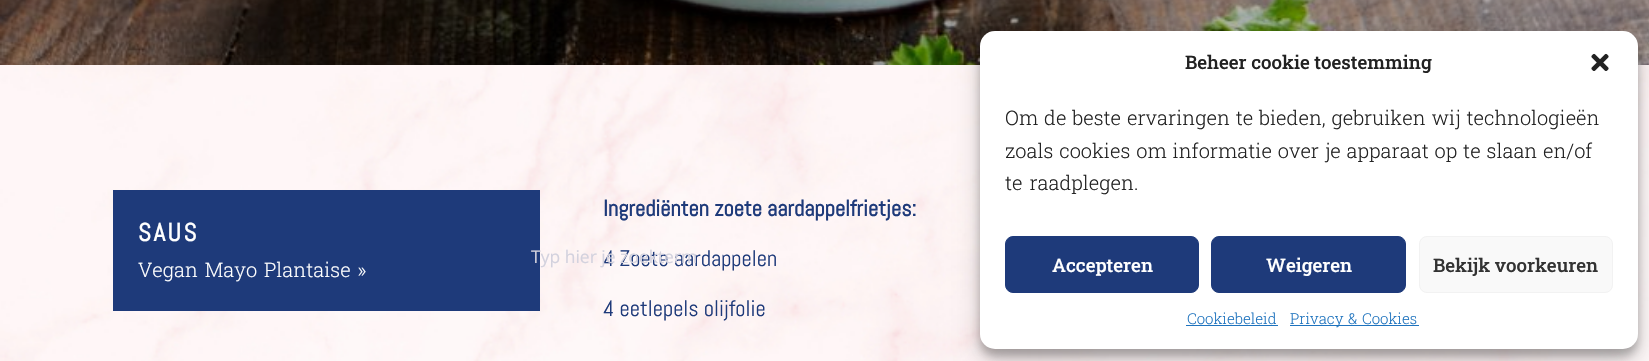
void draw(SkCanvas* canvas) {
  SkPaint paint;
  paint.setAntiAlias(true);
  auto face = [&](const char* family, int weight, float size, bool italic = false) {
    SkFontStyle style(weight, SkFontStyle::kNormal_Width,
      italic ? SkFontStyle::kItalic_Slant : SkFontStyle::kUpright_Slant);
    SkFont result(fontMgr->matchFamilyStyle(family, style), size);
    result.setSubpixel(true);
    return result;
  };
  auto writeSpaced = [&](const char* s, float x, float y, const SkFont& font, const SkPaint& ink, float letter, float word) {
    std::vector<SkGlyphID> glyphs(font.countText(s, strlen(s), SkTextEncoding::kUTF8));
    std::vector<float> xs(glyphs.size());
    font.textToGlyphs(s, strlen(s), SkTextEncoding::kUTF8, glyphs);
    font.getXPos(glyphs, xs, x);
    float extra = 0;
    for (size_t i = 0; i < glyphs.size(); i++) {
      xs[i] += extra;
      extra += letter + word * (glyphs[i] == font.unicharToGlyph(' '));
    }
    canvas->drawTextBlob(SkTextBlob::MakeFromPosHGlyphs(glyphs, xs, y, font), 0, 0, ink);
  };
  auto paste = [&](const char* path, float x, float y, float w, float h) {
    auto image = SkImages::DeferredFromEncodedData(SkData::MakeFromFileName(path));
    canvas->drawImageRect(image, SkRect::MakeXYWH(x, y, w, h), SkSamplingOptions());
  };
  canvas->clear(0xffffffff);
  paste("img/1.png", 0, 65, 1649, 296);
  paste("img/2.png", 0, 0, 1649, 65);
  paint.setColor(0xff1e3a7a);
  canvas->drawRect(SkRect::MakeXYWH(113, 190, 427, 121), paint);
  paint.setColor(0x3b000000);
  paint.setMaskFilter(SkMaskFilter::MakeBlur(kNormal_SkBlurStyle, 4));
  canvas->drawRoundRect(SkRect::MakeXYWH(980, 39, 658, 317), 15, 15, paint);
  paint.setMaskFilter(nullptr);
  paint.setColor(0x30000000);
  paint.setMaskFilter(SkMaskFilter::MakeBlur(kNormal_SkBlurStyle, 12.5f));
  canvas->drawRoundRect(SkRect::MakeXYWH(980, 44, 658, 317), 15, 15, paint);
  paint.setMaskFilter(nullptr);
  paint.setColor(0xffffffff);
  canvas->drawRoundRect(SkRect::MakeXYWH(980, 31, 658, 318), 15, 15, paint);
  paste("img/3.png", 1591, 53, 18, 18);
  paint.setColor(0xff1e3a7a);
  canvas->drawRoundRect(SkRect::MakeXYWH(1005.5f, 236.5f, 193, 56), 7.5f, 7.5f, paint);
  paint.setStroke(true);
  paint.setStrokeWidth(1);
  canvas->drawRoundRect(SkRect::MakeXYWH(1005.5f, 236.5f, 193, 56), 7.5f, 7.5f, paint);
  paint.setStroke(false);
  canvas->drawRoundRect(SkRect::MakeXYWH(1211.5f, 236.5f, 194, 56), 7.5f, 7.5f, paint);
  paint.setStroke(true);
  canvas->drawRoundRect(SkRect::MakeXYWH(1211.5f, 236.5f, 194, 56), 7.5f, 7.5f, paint);
  paint.setStroke(false);
  paint.setColor(0xfff9f9f9);
  canvas->drawRoundRect(SkRect::MakeXYWH(1419.5f, 236.5f, 193, 56), 7.5f, 7.5f, paint);
  paint.setStroke(true);
  paint.setColor(0xfff2f2f2);
  canvas->drawRoundRect(SkRect::MakeXYWH(1419.5f, 236.5f, 193, 56), 7.5f, 7.5f, paint);
  paint.setStroke(false);
  paint.setColor(0xff1e73be);
  canvas->drawRect(SkRect::MakeXYWH(1186, 325, 92, 1), paint);
  canvas->drawRect(SkRect::MakeXYWH(1290, 325, 129, 1), paint);
  auto f0 = face("Abel", 700, 25);
  paint.setColor(0xffffffff);
  writeSpaced("SAUS", 138, 241, f0, paint, 2.5f, 0);
  auto f1 = face("Roboto Slab", 300, 20);
  writeSpaced("Vegan Mayo Plantaise »", 138, 277, f1, paint, 0, 2);
  auto f2 = face("Abel", 700, 22.5f);
  paint.setColor(0xff1e3a7a);
  canvas->drawString("Ingrediënten zoete aardappelfrietjes:", 603, 216, f2, paint);
  auto f3 = face("Abel", 400, 22.5f);
  canvas->drawString("4 Zoete aardappelen", 603, 266, f3, paint);
  canvas->drawString("4 eetlepels olijfolie", 603, 316, f3, paint);
  auto f4 = face("Roboto Slab", 500, 18.75f);
  paint.setColor(0xff222222);
  canvas->drawString("Beheer cookie toestemming", 1185, 69, f4, paint);
  writeSpaced("Om de beste ervaringen te bieden, gebruiken wij technologieën", 1005, 125, f1, paint, 0, 1);
  writeSpaced("zoals cookies om informatie over je apparaat op te slaan en/of", 1005, 158, f1, paint, 0, 1);
  writeSpaced("te raadplegen.", 1005, 190, f1, paint, 0, 2);
  paint.setColor(0xffffffff);
  canvas->drawString("Accepteren", 1052, 272, f4, paint);
  canvas->drawString("Weigeren", 1266, 272, f4, paint);
  paint.setColor(0xff333333);
  canvas->drawString("Bekijk voorkeuren", 1433, 272, f4, paint);
  auto f5 = face("Roboto Slab", 300, 15);
  paint.setColor(0xff1e73be);
  canvas->drawString("Cookiebeleid", 1187, 324, f5, paint);
  writeSpaced("Privacy & Cookies", 1290, 324, f5, paint, 0, 1);
  auto f6 = face("Open Sans", 400, 17.5f);
  paint.setColor(0xffd3d2de);
  canvas->drawString("Typ hier je zoekterm", 531, 263, f6, paint);
}
